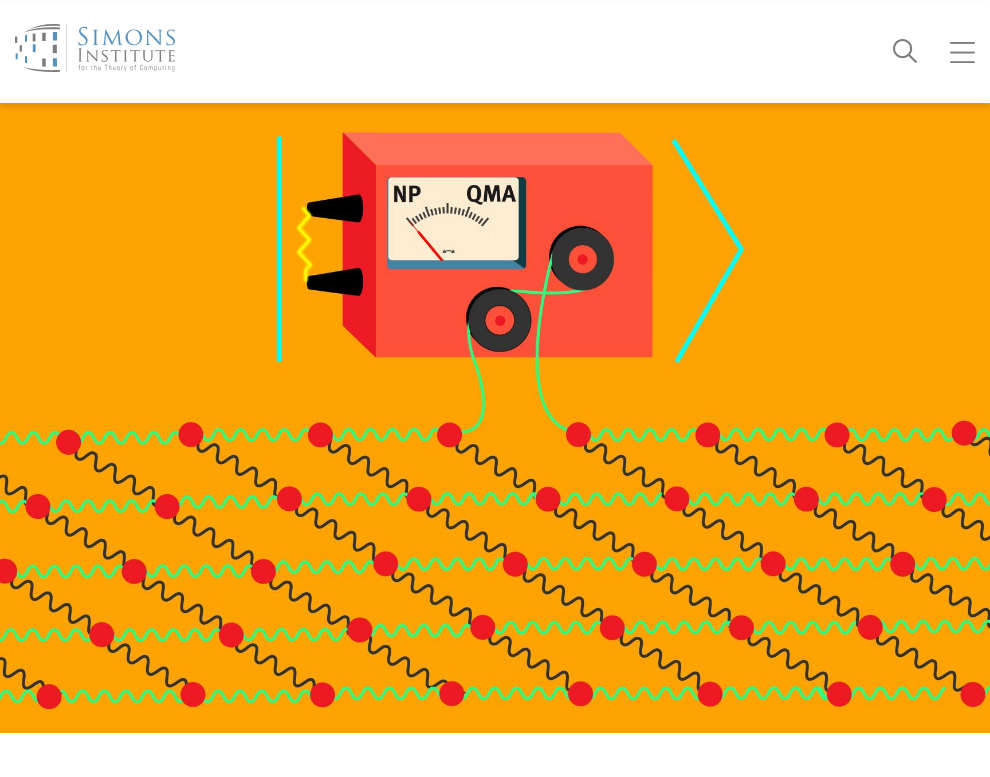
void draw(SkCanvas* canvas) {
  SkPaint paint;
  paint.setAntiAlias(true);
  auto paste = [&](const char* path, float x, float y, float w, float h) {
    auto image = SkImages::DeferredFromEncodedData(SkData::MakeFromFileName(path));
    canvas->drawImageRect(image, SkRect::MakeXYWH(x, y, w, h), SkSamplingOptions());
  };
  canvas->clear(0xffffffff);
  paste("img/4.png", 0, 103, 990, 630);
  paint.setColor(0x1a000000);
  paint.setMaskFilter(SkMaskFilter::MakeBlur(kNormal_SkBlurStyle, 2.5f));
  canvas->drawRect(SkRect::MakeXYWH(0, 5, 990, 103), paint);
  paint.setMaskFilter(nullptr);
  paint.setColor(0xffffffff);
  canvas->drawRect(SkRect::MakeXYWH(0, 2, 990, 101), paint);
  paste("img/1.png", 15, 24, 160, 48);
  paste("img/2.png", 893, 39, 24, 24);
  paste("img/3.png", 950, 42, 25, 21);
}
